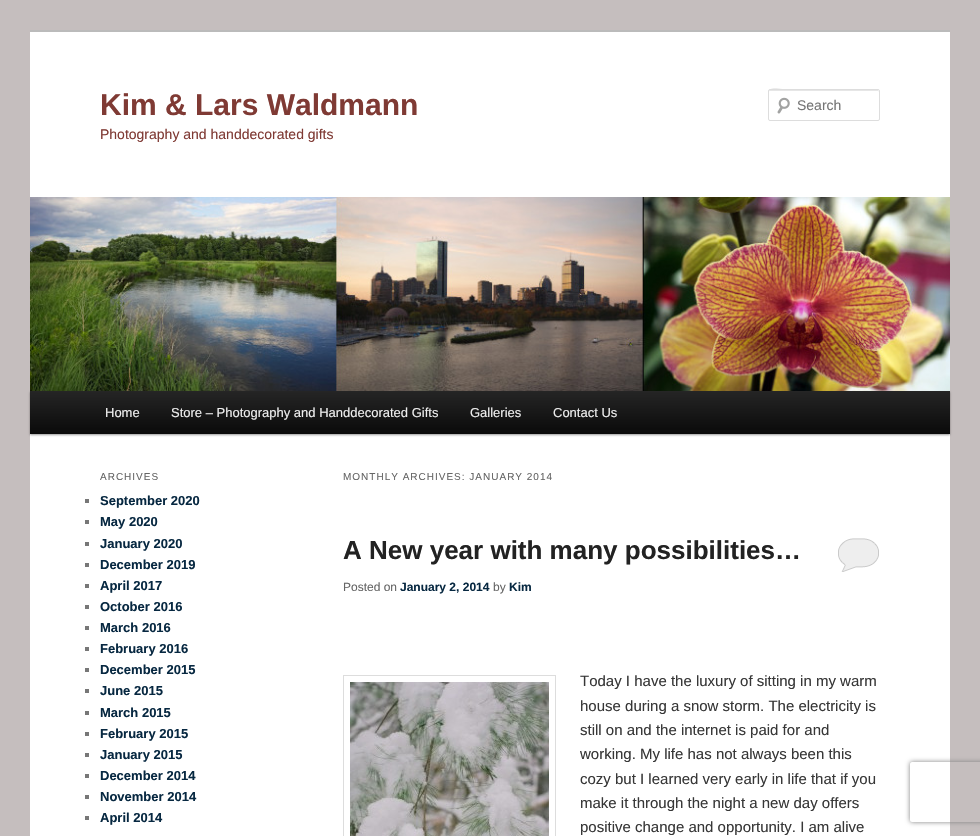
void draw(SkCanvas* canvas) {
  SkPaint paint;
  paint.setAntiAlias(true);
  auto face = [&](const char* family, int weight, float size, bool italic = false) {
    SkFontStyle style(weight, SkFontStyle::kNormal_Width,
      italic ? SkFontStyle::kItalic_Slant : SkFontStyle::kUpright_Slant);
    SkFont result(fontMgr->matchFamilyStyle(family, style), size);
    result.setSubpixel(true);
    return result;
  };
  auto writeSpaced = [&](const char* s, float x, float y, const SkFont& font, const SkPaint& ink, float letter, float word) {
    std::vector<SkGlyphID> glyphs(font.countText(s, strlen(s), SkTextEncoding::kUTF8));
    std::vector<float> xs(glyphs.size());
    font.textToGlyphs(s, strlen(s), SkTextEncoding::kUTF8, glyphs);
    font.getXPos(glyphs, xs, x);
    float extra = 0;
    for (size_t i = 0; i < glyphs.size(); i++) {
      xs[i] += extra;
      extra += letter + word * (glyphs[i] == font.unicharToGlyph(' '));
    }
    canvas->drawTextBlob(SkTextBlob::MakeFromPosHGlyphs(glyphs, xs, y, font), 0, 0, ink);
  };
  auto paste = [&](const char* path, float x, float y, float w, float h) {
    auto image = SkImages::DeferredFromEncodedData(SkData::MakeFromFileName(path));
    canvas->drawImageRect(image, SkRect::MakeXYWH(x, y, w, h), SkSamplingOptions());
  };
  auto shape = [&](const char* data, bool evenOdd = false) {
    SkPath result = *SkParsePath::FromSVGString(data);
    if (evenOdd) result.setFillType(SkPathFillType::kEvenOdd);
    return result;
  };
  canvas->clear(0xffc5bebe);
  paint.setColor(0xffffffff);
  canvas->drawRect(SkRect::MakeXYWH(30, 32, 920, 804), paint);
  paint.setColor(0xffbbbbbb);
  canvas->drawRect(SkRect::MakeXYWH(30, 30, 920, 2), paint);
  paste("img/1.png", 777, 97, 13, 17);
  paint.setColor(0xffe6e6e6);
  canvas->drawPath(shape("M770 91H879V92L878 90H788C784 90 769 85 769 92C769 91 769 91 770 91Z"), paint);
  paint.setStroke(true);
  paint.setStrokeWidth(1);
  paint.setColor(0xffdddddd);
  canvas->drawRoundRect(SkRect::MakeXYWH(768.5f, 89.5f, 111, 31), 1.5f, 1.5f, paint);
  paint.setStroke(false);
  paint.setColor(0x66000000);
  paint.setMaskFilter(SkMaskFilter::MakeBlur(kNormal_SkBlurStyle, 1));
  canvas->drawRect(SkRect::MakeXYWH(30, 392, 920, 43), paint);
  paint.setMaskFilter(nullptr);
  paste("img/2.png", 30, 197, 920, 194);
  {
    const SkColor colors[] = {0xff252525, 0xff0a0a0a};
    const float stops[] = {0, 1};
    const SkPoint ends[] = {{490, 391}, {490, 434}};
    paint.setShader(SkGradientShader::MakeLinear(ends, colors, stops, 2, SkTileMode::kClamp));
    paint.setAlpha(255);
  }
  canvas->drawRect(SkRect::MakeXYWH(30, 391, 920, 43), paint);
  paint.setShader(nullptr);
  {
    const struct { float x, y, w, h; SkColor color; } items[] = {
      {85, 499, 4, 4, 0xff777777},
      {85, 520, 4, 4, 0xff777777},
      {85, 542, 4, 4, 0xff777777},
      {85, 563, 4, 4, 0xff777777},
      {85, 584, 4, 4, 0xff777777},
      {85, 605, 4, 4, 0xff777777},
      {85, 626, 4, 4, 0xff777777},
      {85, 647, 4, 4, 0xff777777},
      {85, 668, 4, 4, 0xff777777},
      {85, 689, 4, 4, 0xff777777},
      {85, 711, 4, 4, 0xff777777},
      {85, 732, 4, 4, 0xff777777},
      {85, 753, 4, 4, 0xff777777},
      {85, 774, 4, 4, 0xff777777},
      {85, 795, 4, 4, 0xff777777},
      {85, 816, 4, 4, 0xff777777},
      {838, 538, 41, 34, 0xffeeeeee},
    };
    for (auto [x, y, w, h, color] : items) {
      paint.setColor(color);
      canvas->drawRect(SkRect::MakeXYWH(x, y, w, h), paint);
    }
  }
  paste("img/3.png", 837, 536, 43, 36);
  paint.setStroke(true);
  paint.setColor(0xffdddddd);
  canvas->drawRect(SkRect::MakeXYWH(343.5f, 675.5f, 212, 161), paint);
  paste("img/4.png", 350, 682, 199, 154);
  canvas->save();
  canvas->clipPath(shape("M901 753H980V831H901ZM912 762H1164C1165 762 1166 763 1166 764V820C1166 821 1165 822 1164 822H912C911 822 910 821 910 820V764C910 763 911 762 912 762Z", true), true);
  paint.setStroke(false);
  paint.setColor(0xff808080);
  paint.setMaskFilter(SkMaskFilter::MakeBlur(kNormal_SkBlurStyle, 2.5f));
  canvas->drawRoundRect(SkRect::MakeXYWH(910, 762, 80, 60), 2, 2, paint);
  paint.setMaskFilter(nullptr);
  canvas->restore();
  auto f0 = face("Liberation Sans", 700, 30);
  paint.setColor(0xff7f3a34);
  canvas->drawString("Kim & Lars Waldmann", 100, 115, f0, paint);
  auto f1 = face("Liberation Sans", 400, 14);
  canvas->drawString("Photography and handdecorated gifts", 100, 139, f1, paint);
  paint.setColor(0xff757575);
  canvas->drawString("Search", 797, 110, f1, paint);
  auto f2 = face("Liberation Sans", 400, 13);
  paint.setColor(0xffeeeeee);
  {
    const struct { const char* s; float x, y; } items[] = {
      {"Home", 105, 417},
      {"Store – Photography and Handdecorated Gifts", 171, 417},
      {"Galleries", 470, 417},
      {"Contact Us", 553, 417},
    };
    for (auto [s, x, y] : items) {
      canvas->drawString(s, x, y, f2, paint);
    }
  }
  auto f3 = face("Liberation Sans", 400, 10);
  paint.setColor(0xff666666);
  writeSpaced("ARCHIVES", 100, 480, f3, paint, 1, 0);
  auto f4 = face("Liberation Sans", 700, 13);
  paint.setColor(0xff072841);
  {
    const struct { const char* s; float x, y; } items[] = {
      {"September 2020", 100, 505},
      {"May 2020", 100, 526},
      {"January 2020", 100, 548},
      {"December 2019", 100, 569},
      {"April 2017", 100, 590},
      {"October 2016", 100, 611},
      {"March 2016", 100, 632},
      {"February 2016", 100, 653},
      {"December 2015", 100, 674},
      {"June 2015", 100, 695},
      {"March 2015", 100, 717},
      {"February 2015", 100, 738},
      {"January 2015", 100, 759},
      {"December 2014", 100, 780},
      {"November 2014", 100, 801},
      {"April 2014", 100, 822},
    };
    for (auto [s, x, y] : items) {
      canvas->drawString(s, x, y, f4, paint);
    }
  }
  paint.setColor(0xff666666);
  writeSpaced("MONTHLY ARCHIVES: JANUARY 2014", 343, 480, f3, paint, 1, 0);
  auto f5 = face("Liberation Sans", 700, 26);
  paint.setColor(0xff222222);
  canvas->drawString("A New year with many possibilities…", 343, 559, f5, paint);
  auto f6 = face("Liberation Sans", 400, 12);
  paint.setColor(0xff666666);
  canvas->drawString("Posted on", 343, 591, f6, paint);
  auto f7 = face("Liberation Sans", 700, 12);
  paint.setColor(0xff072841);
  canvas->drawString("January 2, 2014", 400, 591, f7, paint);
  paint.setColor(0xff666666);
  canvas->drawString("by", 493, 591, f6, paint);
  paint.setColor(0xff072841);
  canvas->drawString("Kim", 509, 591, f7, paint);
  auto f8 = face("Liberation Sans", 400, 15);
  paint.setColor(0xff373737);
  {
    const struct { const char* s; float x, y; } items[] = {
      {"Today I have the luxury of sitting in my warm", 580, 686},
      {"house during a snow storm. The electricity is", 580, 711},
      {"still on and the internet is paid for and", 580, 735},
      {"working. My life has not always been this", 580, 759},
      {"cozy but I learned very early in life that if you", 580, 784},
      {"make it through the night a new day offers", 580, 808},
      {"positive change and opportunity. I am alive", 580, 832},
    };
    for (auto [s, x, y] : items) {
      canvas->drawString(s, x, y, f8, paint);
    }
  }
}
